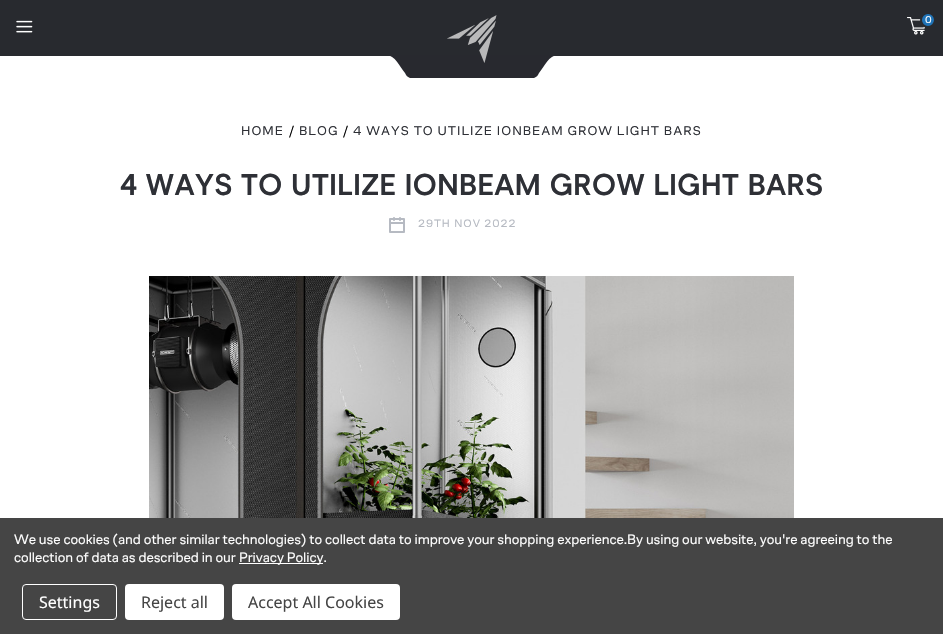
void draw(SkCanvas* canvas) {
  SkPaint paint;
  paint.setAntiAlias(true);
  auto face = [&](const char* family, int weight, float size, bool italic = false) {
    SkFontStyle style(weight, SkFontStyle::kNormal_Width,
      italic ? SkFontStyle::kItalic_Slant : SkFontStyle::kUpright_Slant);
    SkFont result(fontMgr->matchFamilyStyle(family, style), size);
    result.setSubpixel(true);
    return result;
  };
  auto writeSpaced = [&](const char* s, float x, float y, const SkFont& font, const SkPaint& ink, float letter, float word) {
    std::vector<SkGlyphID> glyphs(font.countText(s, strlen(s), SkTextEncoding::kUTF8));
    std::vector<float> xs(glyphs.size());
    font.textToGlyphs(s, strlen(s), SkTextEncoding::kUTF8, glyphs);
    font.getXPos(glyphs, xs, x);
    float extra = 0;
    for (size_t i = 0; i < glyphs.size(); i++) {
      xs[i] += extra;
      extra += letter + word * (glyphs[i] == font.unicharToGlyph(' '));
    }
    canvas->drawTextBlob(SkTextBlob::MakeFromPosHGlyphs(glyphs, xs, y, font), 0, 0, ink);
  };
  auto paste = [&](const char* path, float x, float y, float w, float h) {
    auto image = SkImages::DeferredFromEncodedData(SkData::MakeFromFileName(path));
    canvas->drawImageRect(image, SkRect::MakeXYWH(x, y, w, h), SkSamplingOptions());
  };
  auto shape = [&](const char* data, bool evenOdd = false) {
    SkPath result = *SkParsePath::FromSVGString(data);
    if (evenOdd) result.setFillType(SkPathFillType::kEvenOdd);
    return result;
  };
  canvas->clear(0xffffffff);
  paint.setColor(0xff282a2f);
  canvas->drawRect(SkRect::MakeXYWH(0, 0, 943, 56), paint);
  paste("img/1.png", 16, 20, 17, 13);
  canvas->save();
  canvas->clipRect(SkRect::MakeXYWH(384, 55, 175, 23));
  paint.setColor(0xff28292f);
  canvas->drawPath(shape("M558 55H386C395 55 400 67 405 73C406 75 407 77 410 78C417 80 425 78 432 78H512C519 78 527 80 534 78C537 77 538 75 539 73C544 67 549 55 558 55Z"), paint);
  canvas->restore();
  paste("img/2.png", 447, 15, 50, 48);
  paste("img/3.png", 907, 17, 18, 18);
  paint.setColor(0xff1f73b7);
  canvas->drawCircle(928, 20, 7, paint);
  paint.setStroke(true);
  paint.setStrokeWidth(2);
  paint.setColor(0xff282a2f);
  canvas->drawCircle(928, 20, 7, paint);
  paste("img/4.png", 389, 217, 16, 16);
  paste("img/5.png", 149, 276, 645, 242);
  paint.setStroke(false);
  paint.setColor(0xff454545);
  canvas->drawRect(SkRect::MakeXYWH(0, 518, 943, 116), paint);
  paint.setColor(0xffffffff);
  canvas->drawRect(SkRect::MakeXYWH(239, 563, 84, 1), paint);
  paint.setStroke(true);
  paint.setStrokeWidth(1);
  canvas->drawRoundRect(SkRect::MakeXYWH(22.5f, 584.5f, 94, 35), 3.5f, 3.5f, paint);
  paint.setStroke(false);
  canvas->drawRoundRect(SkRect::MakeXYWH(125, 584, 99, 36), 4, 4, paint);
  canvas->drawRoundRect(SkRect::MakeXYWH(232, 584, 168, 36), 4, 4, paint);
  auto f0 = face("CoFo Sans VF", 400, 10);
  canvas->drawString("0", 925, 23, f0, paint);
  auto f1 = face("CoFo Sans VF", 400, 13);
  paint.setColor(0xff2e3036);
  writeSpaced("HOME", 241, 135, f1, paint, 1, 0);
  paint.setColor(0xff000000);
  writeSpaced("/", 288, 135, f1, paint, 1, 0);
  paint.setColor(0xff2e3036);
  writeSpaced("BLOG", 299, 135, f1, paint, 1, 0);
  paint.setColor(0xff000000);
  writeSpaced("/", 342, 135, f1, paint, 1, 0);
  paint.setColor(0xff2e3036);
  writeSpaced("4 WAYS TO UTILIZE IONBEAM GROW LIGHT BARS", 353, 135, f1, paint, 1, 0);
  auto f2 = face("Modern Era", 700, 30);
  canvas->drawString("4 WAYS TO UTILIZE IONBEAM GROW LIGHT BARS", 120, 195, f2, paint);
  auto f3 = face("CoFo Sans VF", 400, 11);
  paint.setColor(0xffb6bac2);
  writeSpaced("29TH NOV 2022", 418, 227, f3, paint, 1, 0);
  auto f4 = face("CoFo Sans VF", 400, 14);
  paint.setColor(0xffffffff);
  {
    const struct { const char* s; float x, y; } items[] = {
      {"We use cookies (and other similar technologies) to collect data to improve your shopping experience.By using our website, you're agreeing to the", 14, 544},
      {"collection of data as described in our", 14, 562},
      {"Privacy Policy.", 239, 562},
    };
    for (auto [s, x, y] : items) {
      writeSpaced(s, x, y, f4, paint, -0.05f, 0);
    }
  }
  auto f5 = face("Noto Sans", 400, 16);
  canvas->drawString("Settings", 39, 608, f5, paint);
  paint.setColor(0xff454545);
  canvas->drawString("Reject all", 141, 608, f5, paint);
  canvas->drawString("Accept All Cookies", 248, 608, f5, paint);
}
